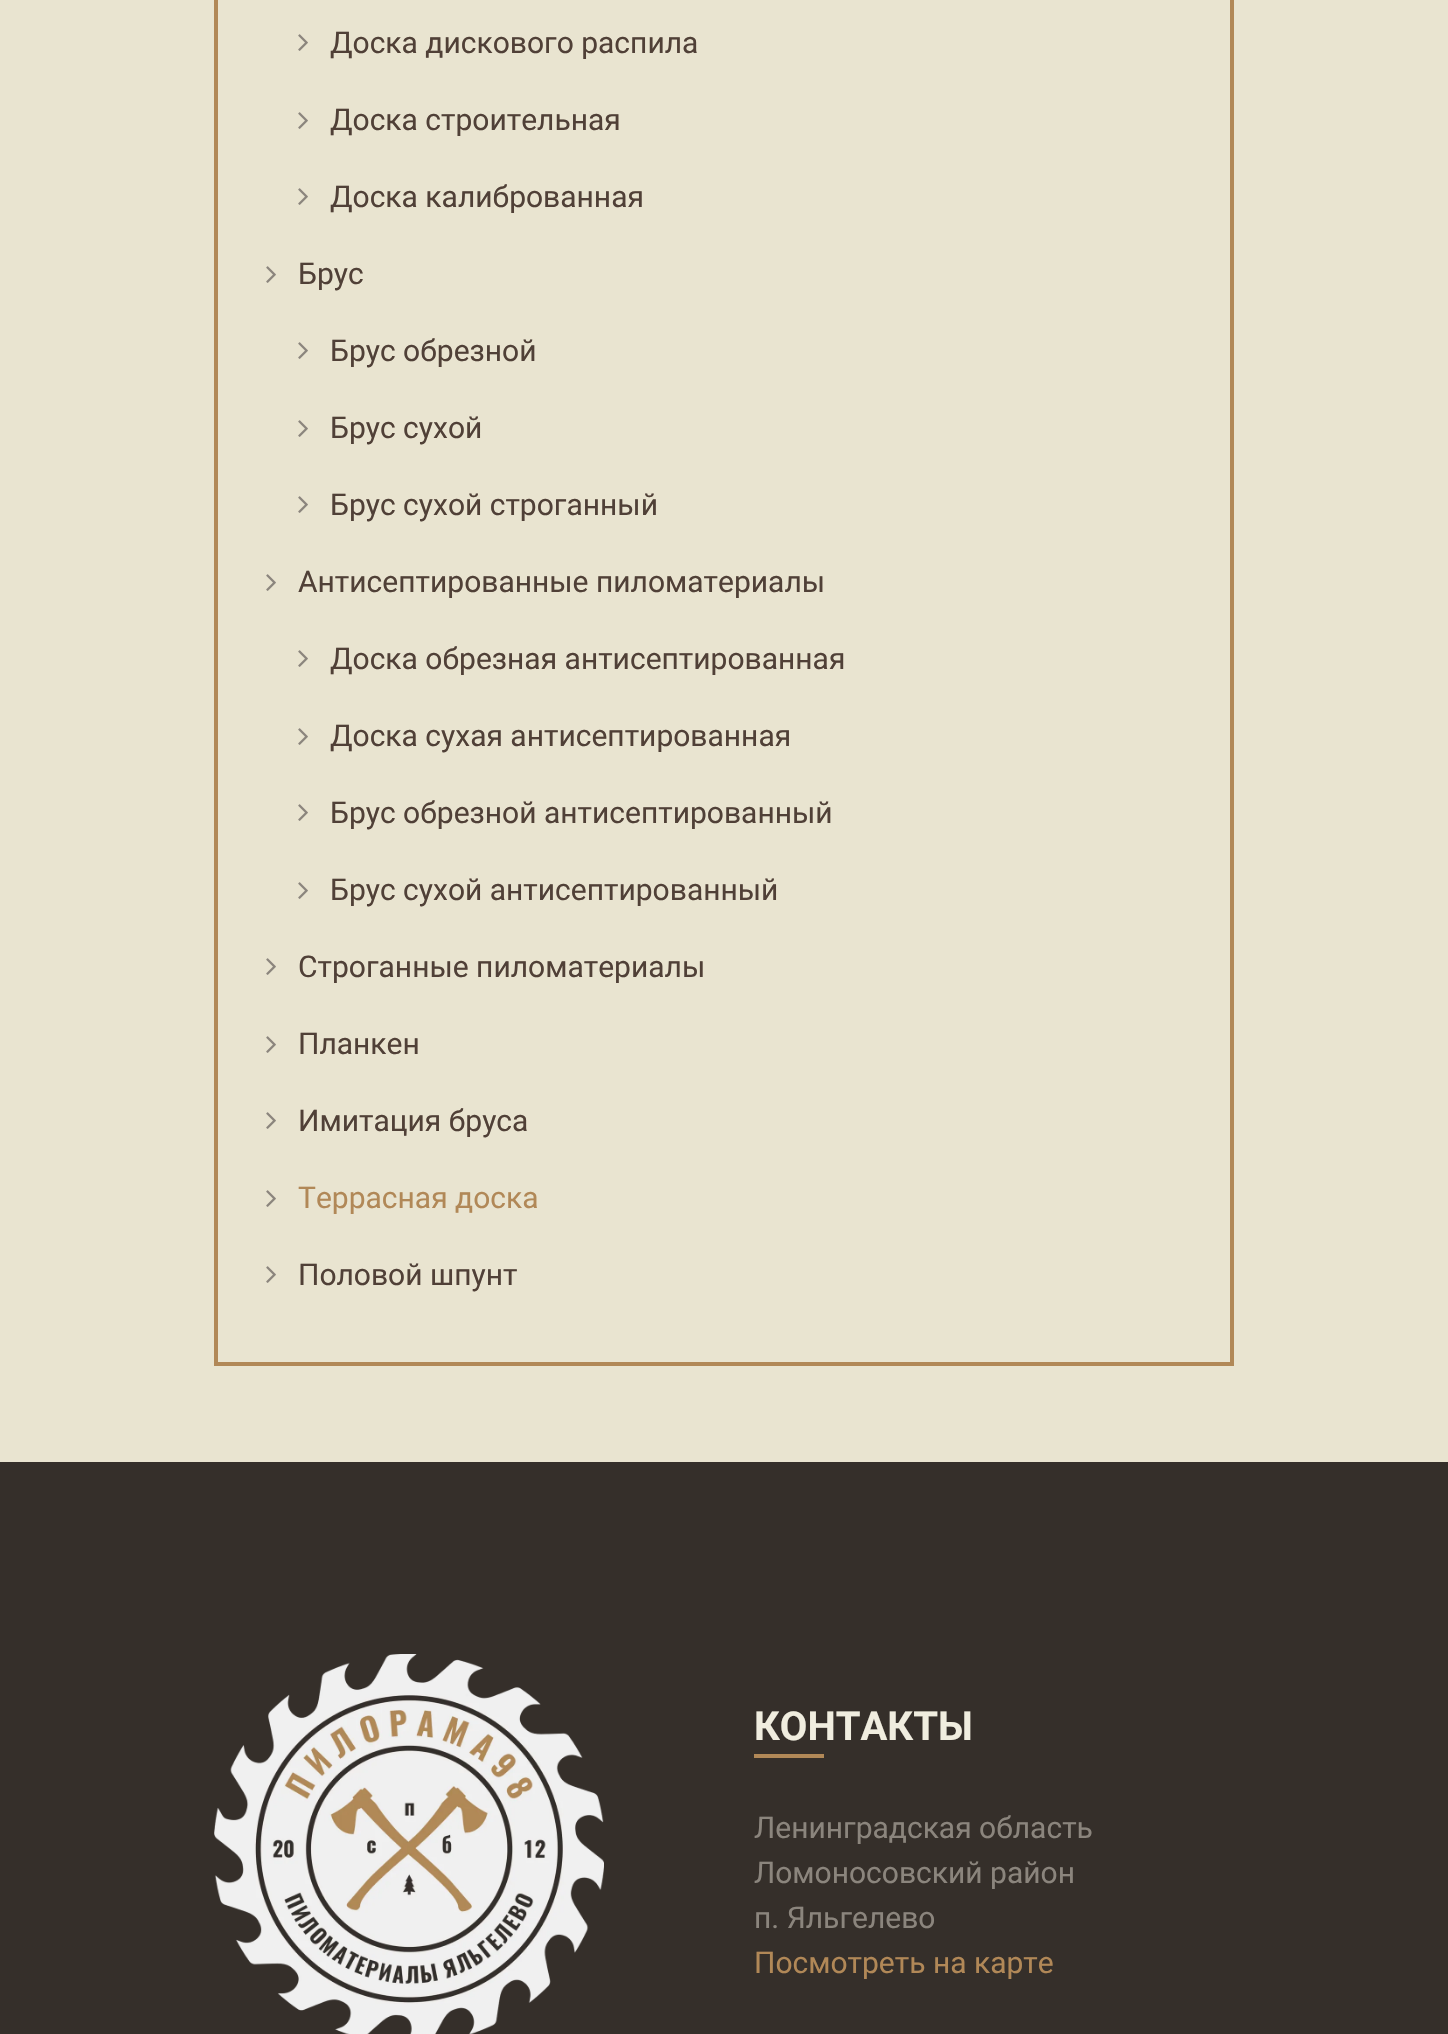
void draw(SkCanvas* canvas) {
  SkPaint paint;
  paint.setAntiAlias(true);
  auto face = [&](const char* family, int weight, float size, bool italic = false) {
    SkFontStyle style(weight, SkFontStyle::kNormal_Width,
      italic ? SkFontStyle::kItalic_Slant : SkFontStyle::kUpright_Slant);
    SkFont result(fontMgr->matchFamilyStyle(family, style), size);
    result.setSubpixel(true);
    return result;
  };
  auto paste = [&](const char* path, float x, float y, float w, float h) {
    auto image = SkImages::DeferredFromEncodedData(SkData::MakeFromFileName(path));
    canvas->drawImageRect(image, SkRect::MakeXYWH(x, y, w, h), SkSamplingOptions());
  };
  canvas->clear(0xffe9e4d0);
  paint.setStroke(true);
  paint.setStrokeWidth(4);
  paint.setColor(0xffb18857);
  canvas->drawRect(SkRect::MakeXYWH(216, -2, 1016, 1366), paint);
  paste("img/1.png", 298, 34, 10, 17);
  paste("img/1.png", 298, 112, 10, 17);
  paste("img/1.png", 298, 188, 10, 17);
  paste("img/1.png", 266, 266, 10, 17);
  paste("img/1.png", 298, 342, 10, 17);
  paste("img/1.png", 298, 420, 10, 17);
  paste("img/1.png", 298, 496, 10, 17);
  paste("img/1.png", 266, 574, 10, 17);
  paste("img/1.png", 298, 650, 10, 17);
  paste("img/1.png", 298, 728, 10, 17);
  paste("img/1.png", 298, 804, 10, 17);
  paste("img/1.png", 298, 882, 10, 17);
  paste("img/1.png", 266, 958, 10, 17);
  paste("img/1.png", 266, 1036, 10, 17);
  paste("img/1.png", 266, 1112, 10, 17);
  paste("img/1.png", 266, 1190, 10, 17);
  paste("img/1.png", 266, 1266, 10, 17);
  paint.setStroke(false);
  paint.setColor(0xff352f2a);
  canvas->drawRect(SkRect::MakeXYWH(0, 1462, 1448, 572), paint);
  paste("img/2.png", 214, 1654, 390, 380);
  paint.setColor(0xffb18857);
  canvas->drawRect(SkRect::MakeXYWH(754, 1754, 70, 4), paint);
  auto f0 = face("Roboto", 400, 30);
  paint.setColor(0xff504037);
  {
    const struct { const char* s; float x, y; } items[] = {
      {"Доска дискового распила", 330, 53},
      {"Доска строительная", 330, 130},
      {"Доска калиброванная", 330, 207},
      {"Брус", 298, 284},
      {"Брус обрезной", 330, 361},
      {"Брус сухой", 330, 438},
      {"Брус сухой строганный", 330, 515},
      {"Антисептированные пиломатериалы", 298, 592},
      {"Доска обрезная антисептированная", 330, 669},
      {"Доска сухая антисептированная", 330, 746},
      {"Брус обрезной антисептированный", 330, 823},
      {"Брус сухой антисептированный", 330, 900},
      {"Строганные пиломатериалы", 298, 977},
      {"Планкен", 298, 1054},
      {"Имитация бруса", 298, 1131},
    };
    for (auto [s, x, y] : items) {
      canvas->drawString(s, x, y, f0, paint);
    }
  }
  paint.setColor(0xffb18857);
  canvas->drawString("Террасная доска", 298, 1208, f0, paint);
  paint.setColor(0xff504037);
  canvas->drawString("Половой шпунт", 298, 1285, f0, paint);
  auto f1 = face("Roboto", 700, 40);
  paint.setColor(0xfff0eddf);
  canvas->drawString("КОНТАКТЫ", 754, 1740, f1, paint);
  paint.setColor(0xff8b857d);
  {
    const struct { const char* s; float x, y; } items[] = {
      {"Ленинградская область", 754, 1838},
      {"Ломоносовский район", 754, 1883},
      {"п. Яльгелево", 754, 1928},
    };
    for (auto [s, x, y] : items) {
      canvas->drawString(s, x, y, f0, paint);
    }
  }
  paint.setColor(0xffb18857);
  canvas->drawString("Посмотреть на карте", 754, 1973, f0, paint);
}
